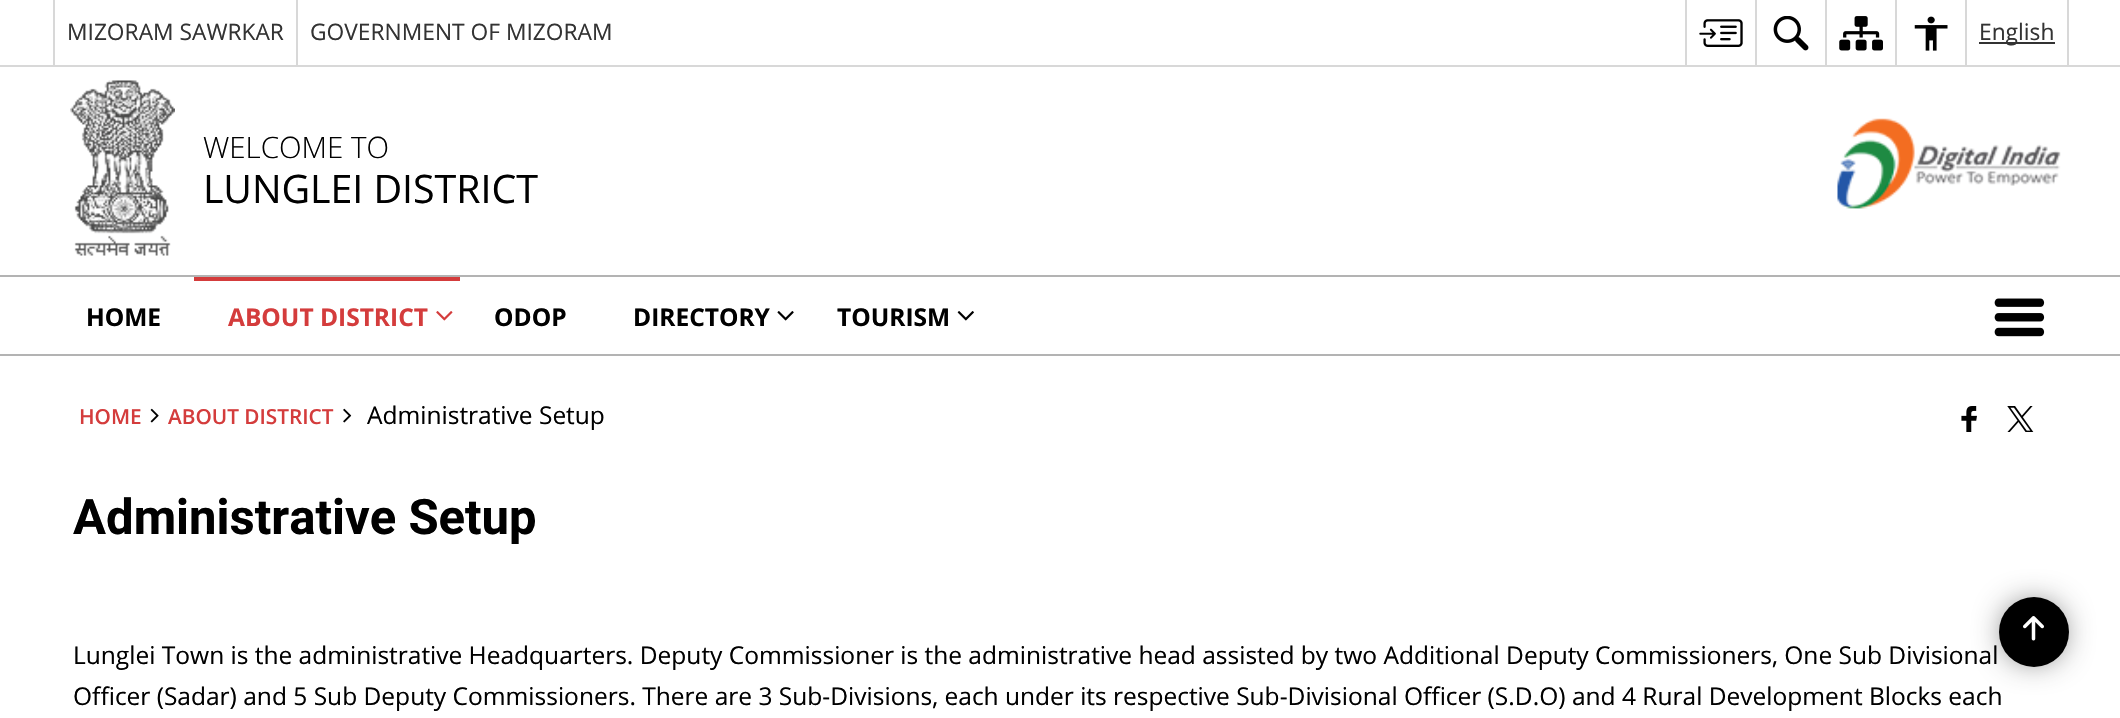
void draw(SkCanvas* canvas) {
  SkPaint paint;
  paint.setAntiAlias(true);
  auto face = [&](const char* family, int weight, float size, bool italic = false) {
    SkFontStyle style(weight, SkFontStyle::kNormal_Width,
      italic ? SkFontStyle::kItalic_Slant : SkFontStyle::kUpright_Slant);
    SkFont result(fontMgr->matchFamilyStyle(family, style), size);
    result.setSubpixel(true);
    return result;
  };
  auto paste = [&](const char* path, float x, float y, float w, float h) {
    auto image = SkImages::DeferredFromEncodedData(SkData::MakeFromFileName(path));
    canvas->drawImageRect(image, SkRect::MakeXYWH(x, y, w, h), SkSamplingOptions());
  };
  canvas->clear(0xffffffff);
  {
    const struct { float x, y, w, h; SkColor color; } items[] = {
      {0, 65, 2120, 2, 0xffd8d8d8},
      {53, 0, 2, 65, 0xffd8d8d8},
      {296, 0, 2, 65, 0xffd8d8d8},
      {1685, 0, 2, 65, 0xffd8d8d8},
    };
    for (auto [x, y, w, h, color] : items) {
      paint.setColor(color);
      canvas->drawRect(SkRect::MakeXYWH(x, y, w, h), paint);
    }
  }
  paste("img/1.png", 1699, 19, 44, 28);
  canvas->drawRect(SkRect::MakeXYWH(1755, 0, 2, 65), paint);
  paste("img/2.png", 1773, 16, 36, 35);
  canvas->drawRect(SkRect::MakeXYWH(1825, 0, 2, 65), paint);
  paste("img/3.png", 1839, 16, 44, 35);
  canvas->drawRect(SkRect::MakeXYWH(1895, 0, 2, 65), paint);
  paste("img/4.png", 1914, 16, 34, 35);
  {
    const struct { float x, y, w, h; SkColor color; } items[] = {
      {2067, 0, 2, 65, 0xffd8d8d8},
      {1965, 0, 2, 65, 0xffd8d8d8},
      {1979, 42, 76, 2, 0xff333333},
    };
    for (auto [x, y, w, h, color] : items) {
      paint.setColor(color);
      canvas->drawRect(SkRect::MakeXYWH(x, y, w, h), paint);
    }
  }
  paste("img/5.png", 70, 80, 105, 176);
  paste("img/6.png", 1837, 118, 224, 91);
  {
    const struct { float x, y, w, h; SkColor color; } items[] = {
      {0, 275, 2120, 2, 0xffb3b3b3},
      {0, 354, 2120, 2, 0xffb3b3b3},
      {194, 277, 266, 4, 0xffd43c3c},
    };
    for (auto [x, y, w, h, color] : items) {
      paint.setColor(color);
      canvas->drawRect(SkRect::MakeXYWH(x, y, w, h), paint);
    }
  }
  paste("img/7.png", 436, 311, 17, 10);
  paste("img/8.png", 777, 311, 17, 10);
  paste("img/9.png", 957, 311, 17, 10);
  paste("img/10.png", 1994, 298, 51, 39);
  paste("img/11.png", 150, 408, 9, 15);
  paste("img/12.png", 343, 408, 9, 15);
  paste("img/13.png", 1961, 406, 16, 26);
  paste("img/14.png", 2007, 406, 27, 26);
  paint.setColor(0xff3c3c3c);
  paint.setMaskFilter(SkMaskFilter::MakeBlur(kNormal_SkBlurStyle, 16.5f));
  canvas->drawRoundRect(SkRect::MakeXYWH(2007, 606, 53, 52), 26, 26, paint);
  paint.setMaskFilter(nullptr);
  paint.setColor(0xff000000);
  canvas->drawCircle(2034, 632, 35, paint);
  paste("img/15.png", 2023, 616, 21, 25);
  auto f0 = face("Open Sans", 400, 22.75f);
  paint.setColor(0xff333333);
  {
    const struct { const char* s; float x, y; } items[] = {
      {"MIZORAM SAWRKAR", 67, 40},
      {"GOVERNMENT OF MIZORAM", 310, 40},
      {"English", 1979, 40},
    };
    for (auto [s, x, y] : items) {
      canvas->drawString(s, x, y, f0, paint);
    }
  }
  auto f1 = face("Open Sans", 300, 29.5f);
  paint.setColor(0xff000000);
  canvas->drawString("WELCOME TO", 203, 158, f1, paint);
  auto f2 = face("Open Sans", 400, 39.25f);
  canvas->drawString("LUNGLEI DISTRICT", 203, 203, f2, paint);
  auto f3 = face("Open Sans", 700, 24.5f);
  canvas->drawString("HOME", 86, 326, f3, paint);
  paint.setColor(0xffd43c3c);
  canvas->drawString("ABOUT DISTRICT", 228, 326, f3, paint);
  paint.setColor(0xff000000);
  {
    const struct { const char* s; float x, y; } items[] = {
      {"ODOP", 494, 326},
      {"DIRECTORY", 633, 326},
      {"TOURISM", 837, 326},
    };
    for (auto [s, x, y] : items) {
      canvas->drawString(s, x, y, f3, paint);
    }
  }
  auto f4 = face("Open Sans", 600, 20.75f);
  paint.setColor(0xffd43c3c);
  canvas->drawString("HOME", 79, 424, f4, paint);
  canvas->drawString("ABOUT DISTRICT", 168, 424, f4, paint);
  auto f5 = face("Open Sans", 400, 24.5f);
  paint.setColor(0xff000000);
  canvas->drawString("Administrative Setup", 367, 424, f5, paint);
  auto f6 = face("Roboto", 700, 49);
  canvas->drawString("Administrative Setup", 73, 534, f6, paint);
  canvas->drawString("Lunglei Town is the administrative Headquarters. Deputy Commissioner is the administrative head assisted by two Additional Deputy Commissioners, One Sub Divisional", 73, 664, f5, paint);
  canvas->drawString("Officer (Sadar) and 5 Sub Deputy Commissioners. There are 3 Sub-Divisions, each under its respective Sub-Divisional Officer (S.D.O) and 4 Rural Development Blocks each", 73, 705, f5, paint);
}
